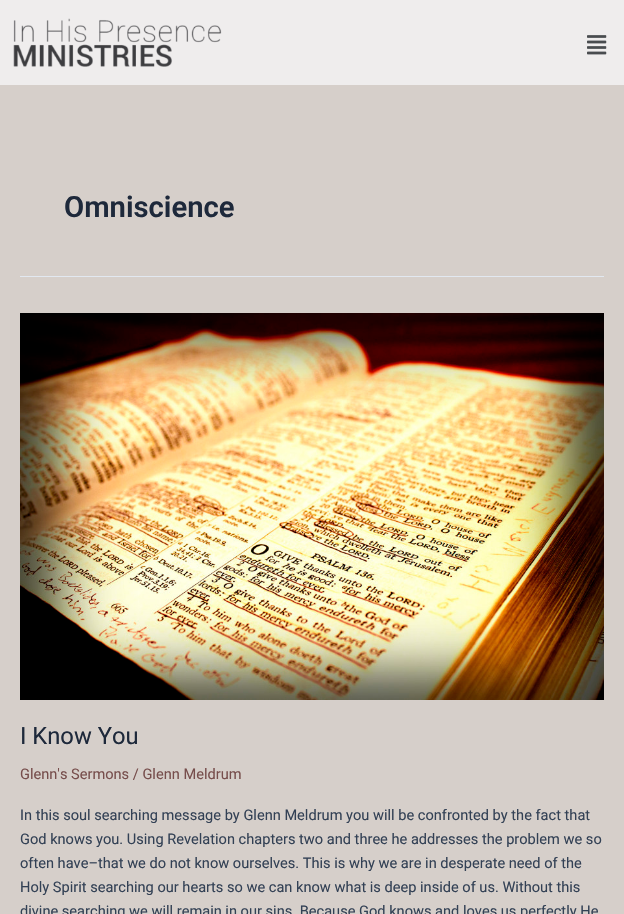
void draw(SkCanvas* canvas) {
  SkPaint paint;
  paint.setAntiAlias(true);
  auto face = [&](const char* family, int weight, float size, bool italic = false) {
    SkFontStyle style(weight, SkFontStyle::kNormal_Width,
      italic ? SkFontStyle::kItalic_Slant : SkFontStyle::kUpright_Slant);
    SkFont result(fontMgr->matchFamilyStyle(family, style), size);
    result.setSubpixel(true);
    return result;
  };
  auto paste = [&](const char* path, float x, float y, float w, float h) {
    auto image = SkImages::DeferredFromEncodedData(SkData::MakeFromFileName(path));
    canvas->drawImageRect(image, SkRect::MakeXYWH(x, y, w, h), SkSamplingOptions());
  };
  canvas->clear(0xffd6cfca);
  paint.setColor(0xffefeded);
  canvas->drawRect(SkRect::MakeXYWH(0, 0, 624, 85), paint);
  paste("img/1.png", 13, 18, 209, 49);
  paste("img/2.png", 587, 35, 20, 20);
  paint.setColor(0xffe2e8f0);
  canvas->drawRect(SkRect::MakeXYWH(20, 276, 584, 1), paint);
  paste("img/3.png", 20, 313, 584, 387);
  auto f0 = face("Roboto", 600, 29.25f);
  paint.setColor(0xff1e293b);
  canvas->drawString("Omniscience", 64, 217, f0, paint);
  auto f1 = face("Roboto", 400, 23.75f);
  canvas->drawString("I Know You", 20, 744, f1, paint);
  auto f2 = face("Roboto", 400, 14.6f);
  paint.setColor(0xff774e4c);
  canvas->drawString("Glenn's Sermons / Glenn Meldrum", 20, 779, f2, paint);
  paint.setColor(0xff334155);
  {
    const struct { const char* s; float x, y; } items[] = {
      {"In this soul searching message by Glenn Meldrum you will be confronted by the fact that", 20, 820},
      {"God knows you. Using Revelation chapters two and three he addresses the problem we so", 20, 844},
      {"often have–that we do not know ourselves. This is why we are in desperate need of the", 20, 868},
      {"Holy Spirit searching our hearts so we can know what is deep inside of us. Without this", 20, 892},
      {"divine searching we will remain in our sins. Because God knows and loves us perfectly He", 20, 916},
    };
    for (auto [s, x, y] : items) {
      canvas->drawString(s, x, y, f2, paint);
    }
  }
}
